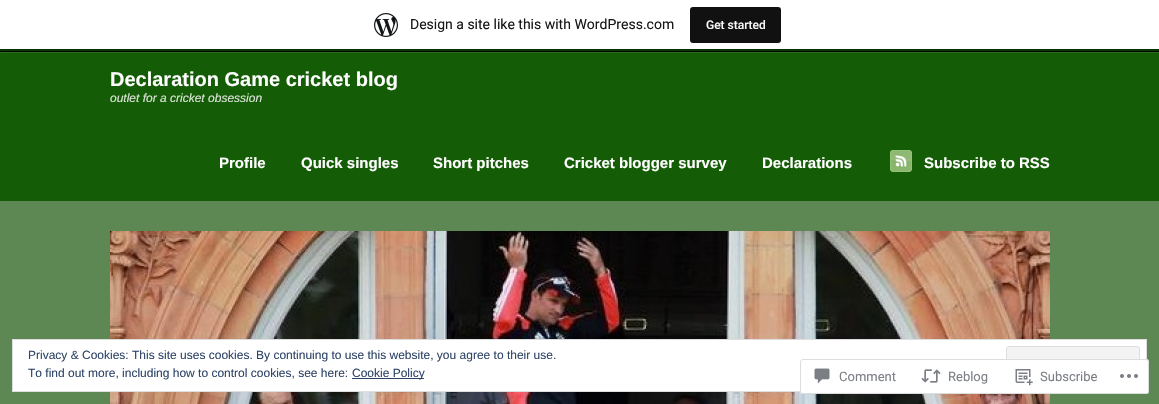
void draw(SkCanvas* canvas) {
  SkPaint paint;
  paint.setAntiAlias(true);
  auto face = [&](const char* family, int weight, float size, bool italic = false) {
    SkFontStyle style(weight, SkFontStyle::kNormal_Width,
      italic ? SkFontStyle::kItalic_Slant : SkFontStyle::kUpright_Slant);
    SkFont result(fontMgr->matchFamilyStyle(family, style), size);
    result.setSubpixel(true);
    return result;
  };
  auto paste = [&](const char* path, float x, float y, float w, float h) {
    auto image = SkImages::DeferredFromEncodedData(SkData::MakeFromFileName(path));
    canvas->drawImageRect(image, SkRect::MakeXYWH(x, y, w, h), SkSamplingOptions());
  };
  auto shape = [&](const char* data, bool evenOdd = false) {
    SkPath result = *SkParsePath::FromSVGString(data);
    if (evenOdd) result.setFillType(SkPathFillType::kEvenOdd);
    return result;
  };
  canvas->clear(0xff5e8853);
  paint.setColor(0xff155c06);
  canvas->drawRect(SkRect::MakeXYWH(0, 49, 1159, 152), paint);
  paste("img/2.png", 0, 49, 1159, 4);
  paint.setColor(0x14000000);
  canvas->drawPath(shape("M1 49V52H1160V3H1159V49Z"), paint);
  paint.setColor(0xffffffff);
  canvas->drawRect(SkRect::MakeXYWH(0, 0, 1159, 49), paint);
  paste("img/1.png", 374, 13, 24, 24);
  paint.setColor(0xff111111);
  canvas->drawRoundRect(SkRect::MakeXYWH(690, 7, 91, 36), 3, 3, paint);
  paste("img/3.png", 890, 150, 22, 22);
  paste("img/4.png", 110, 231, 940, 173);
  paint.setColor(0xffffffff);
  canvas->drawRect(SkRect::MakeXYWH(12.5f, 339.5f, 1134, 52), paint);
  paint.setStroke(true);
  paint.setStrokeWidth(1);
  paint.setColor(0xffdedede);
  canvas->drawRect(SkRect::MakeXYWH(12.5f, 339.5f, 1134, 52), paint);
  paint.setStroke(false);
  paint.setColor(0xfff3f3f3);
  canvas->drawRoundRect(SkRect::MakeXYWH(1006.5f, 346.5f, 133, 38), 2.5f, 2.5f, paint);
  paint.setStroke(true);
  paint.setColor(0xffdedede);
  canvas->drawRoundRect(SkRect::MakeXYWH(1006.5f, 346.5f, 133, 38), 2.5f, 2.5f, paint);
  paint.setStroke(false);
  paint.setColor(0xff2e4467);
  canvas->drawRect(SkRect::MakeXYWH(352, 378, 72, 1), paint);
  paint.setColor(0xfaffffff);
  canvas->drawRoundRect(SkRect::MakeXYWH(800, 359, 349, 35), 3, 3, paint);
  paint.setStroke(true);
  paint.setColor(0xfadcdcde);
  canvas->drawRoundRect(SkRect::MakeXYWH(800.5f, 359.5f, 348, 34), 2.5f, 2.5f, paint);
  paste("img/5.png", 814, 368, 16, 16);
  paste("img/6.png", 921, 369, 20, 14);
  paste("img/7.png", 1015, 369, 18, 17);
  paste("img/8.png", 1120, 374, 18, 4);
  auto f0 = face("Roboto", 400, 14);
  paint.setStroke(false);
  paint.setColor(0xff171717);
  canvas->drawString("Design a site like this with WordPress.com", 410, 29, f0, paint);
  auto f1 = face("Roboto", 500, 12);
  paint.setColor(0xfff6f7f7);
  canvas->drawString("Get started", 706, 29, f1, paint);
  auto f2 = face("Liberation Sans", 700, 20);
  paint.setColor(0xffffffff);
  canvas->drawString("Declaration Game cricket blog", 110, 86, f2, paint);
  auto f3 = face("Liberation Sans", 400, 12, true);
  paint.setColor(0xffd9e3d7);
  canvas->drawString("outlet for a cricket obsession", 110, 102, f3, paint);
  auto f4 = face("Liberation Sans", 700, 15);
  paint.setColor(0xffffffff);
  {
    const struct { const char* s; float x, y; } items[] = {
      {"Profile", 219, 168},
      {"Quick singles", 301, 168},
      {"Short pitches", 433, 168},
      {"Cricket blogger survey", 564, 168},
      {"Declarations", 762, 168},
      {"Subscribe to RSS", 924, 168},
    };
    for (auto [s, x, y] : items) {
      canvas->drawString(s, x, y, f4, paint);
    }
  }
  auto f5 = face("Liberation Sans", 400, 12);
  paint.setColor(0xff2e4467);
  {
    const struct { const char* s; float x, y; } items[] = {
      {"Privacy & Cookies: This site uses cookies. By continuing to use this website, you agree to their use.", 28, 359},
      {"To find out more, including how to control cookies, see here:", 28, 377},
      {"Cookie Policy", 352, 377},
    };
    for (auto [s, x, y] : items) {
      canvas->drawString(s, x, y, f5, paint);
    }
  }
  auto f6 = face("Roboto", 400, 13);
  paint.setColor(0xff7b7f85);
  {
    const struct { const char* s; float x, y; } items[] = {
      {"Comment", 839, 381},
      {"Reblog", 948, 381},
      {"Subscribe", 1040, 381},
    };
    for (auto [s, x, y] : items) {
      canvas->drawString(s, x, y, f6, paint);
    }
  }
}
